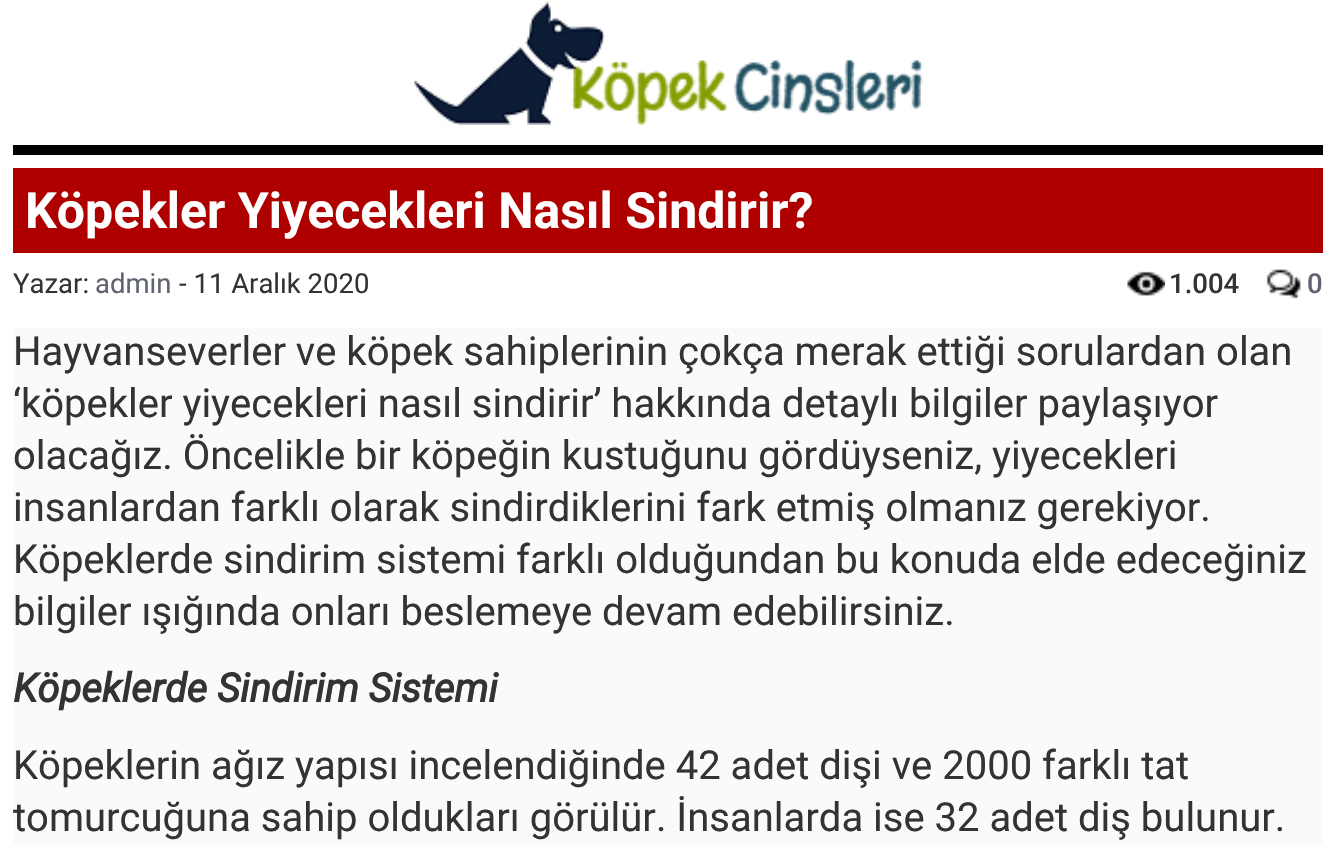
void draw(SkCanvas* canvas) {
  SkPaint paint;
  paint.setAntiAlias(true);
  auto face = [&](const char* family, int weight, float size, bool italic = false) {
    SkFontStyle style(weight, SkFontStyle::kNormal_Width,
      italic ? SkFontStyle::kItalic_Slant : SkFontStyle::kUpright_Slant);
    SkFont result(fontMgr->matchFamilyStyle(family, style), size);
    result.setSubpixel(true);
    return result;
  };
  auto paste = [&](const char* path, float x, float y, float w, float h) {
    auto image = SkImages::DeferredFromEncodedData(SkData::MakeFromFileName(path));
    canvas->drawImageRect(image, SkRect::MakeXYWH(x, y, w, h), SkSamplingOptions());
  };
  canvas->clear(0xffffffff);
  paste("img/1.png", 413, 1, 510, 124);
  paint.setColor(0xff000000);
  canvas->drawRect(SkRect::MakeXYWH(13, 145, 1310, 10), paint);
  paint.setColor(0xffaf0000);
  canvas->drawRect(SkRect::MakeXYWH(13, 168, 1310, 85), paint);
  paste("img/2.png", 1127, 271, 38, 25);
  paste("img/3.png", 1266, 269, 35, 30);
  paint.setColor(0xfffafafa);
  canvas->drawRect(SkRect::MakeXYWH(13, 328, 1310, 517), paint);
  auto f0 = face("Roboto", 700, 50);
  paint.setColor(0xffffffff);
  canvas->drawString("Köpekler Yiyecekleri Nasıl Sindirir?", 25, 228, f0, paint);
  auto f1 = face("Roboto", 400, 27.5f);
  paint.setColor(0xff333333);
  canvas->drawString("Yazar:", 13, 293, f1, paint);
  paint.setColor(0xff606372);
  canvas->drawString("admin", 95, 293, f1, paint);
  paint.setColor(0xff333333);
  canvas->drawString("- 11 Aralık 2020", 179, 293, f1, paint);
  auto f2 = face("Roboto", 500, 27.5f);
  canvas->drawString("1.004", 1169, 293, f2, paint);
  paint.setColor(0xff606372);
  canvas->drawString("0", 1307, 293, f2, paint);
  auto f3 = face("Roboto", 400, 40);
  paint.setColor(0xff333333);
  {
    const struct { const char* s; float x, y; } items[] = {
      {"Hayvanseverler ve köpek sahiplerinin çokça merak ettiği sorulardan olan", 13, 365},
      {"‘köpekler yiyecekleri nasıl sindirir’ hakkında detaylı bilgiler paylaşıyor", 13, 417},
      {"olacağız. Öncelikle bir köpeğin kustuğunu gördüyseniz, yiyecekleri", 13, 469},
      {"insanlardan farklı olarak sindirdiklerini fark etmiş olmanız gerekiyor.", 13, 521},
      {"Köpeklerde sindirim sistemi farklı olduğundan bu konuda elde edeceğiniz", 13, 573},
      {"bilgiler ışığında onları beslemeye devam edebilirsiniz.", 13, 625},
    };
    for (auto [s, x, y] : items) {
      canvas->drawString(s, x, y, f3, paint);
    }
  }
  auto f4 = face("Roboto", 700, 40, true);
  canvas->drawString("Köpeklerde Sindirim Sistemi", 13, 702, f4, paint);
  canvas->drawString("Köpeklerin ağız yapısı incelendiğinde 42 adet dişi ve 2000 farklı tat", 13, 779, f3, paint);
  canvas->drawString("tomurcuğuna sahip oldukları görülür. İnsanlarda ise 32 adet diş bulunur.", 13, 831, f3, paint);
}
